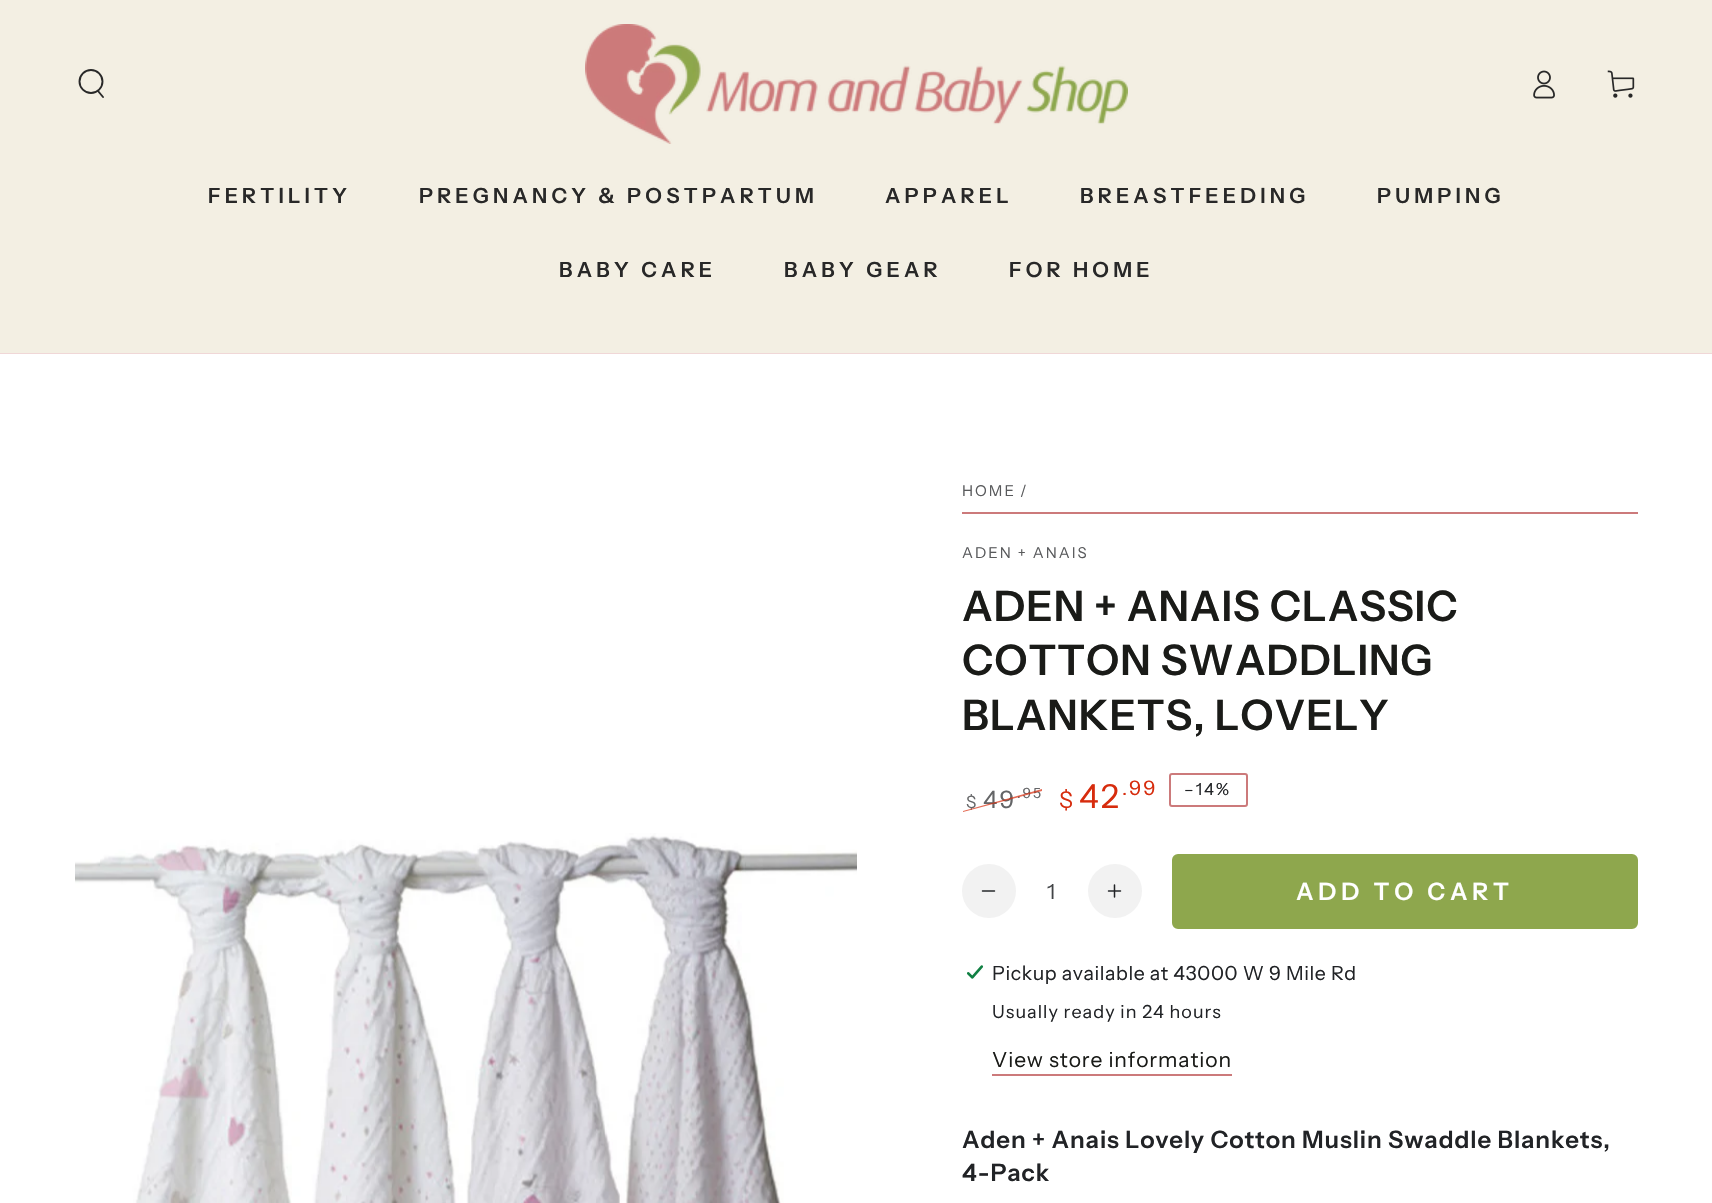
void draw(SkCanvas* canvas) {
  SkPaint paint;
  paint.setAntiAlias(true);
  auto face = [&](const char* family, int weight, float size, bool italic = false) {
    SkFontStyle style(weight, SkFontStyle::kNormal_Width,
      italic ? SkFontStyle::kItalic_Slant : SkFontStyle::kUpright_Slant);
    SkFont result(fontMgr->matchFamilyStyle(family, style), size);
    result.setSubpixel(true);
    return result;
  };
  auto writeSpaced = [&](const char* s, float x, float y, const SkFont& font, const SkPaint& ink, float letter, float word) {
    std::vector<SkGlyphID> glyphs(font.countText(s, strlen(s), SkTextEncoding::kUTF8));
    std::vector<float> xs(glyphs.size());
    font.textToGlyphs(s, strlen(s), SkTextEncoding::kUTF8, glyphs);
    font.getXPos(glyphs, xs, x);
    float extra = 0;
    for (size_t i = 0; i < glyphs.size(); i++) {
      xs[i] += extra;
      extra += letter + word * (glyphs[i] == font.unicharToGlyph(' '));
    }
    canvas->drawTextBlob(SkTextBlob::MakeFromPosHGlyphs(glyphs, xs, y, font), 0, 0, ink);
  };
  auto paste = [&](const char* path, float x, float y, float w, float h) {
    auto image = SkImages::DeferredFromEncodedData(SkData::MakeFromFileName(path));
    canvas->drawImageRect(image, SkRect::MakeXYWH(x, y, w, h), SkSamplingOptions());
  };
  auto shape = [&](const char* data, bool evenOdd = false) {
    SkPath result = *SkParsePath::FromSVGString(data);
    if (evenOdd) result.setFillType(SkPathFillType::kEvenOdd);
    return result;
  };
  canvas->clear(0xffffffff);
  paint.setColor(0xfff0d7d7);
  canvas->drawRect(SkRect::MakeXYWH(0, 353, 1712, 1), paint);
  paint.setColor(0xfff3efe3);
  canvas->drawRect(SkRect::MakeXYWH(0, 0, 1712, 353), paint);
  paint.setStroke(true);
  paint.setStrokeWidth(1.9f);
  paint.setColor(0xff282828);
  canvas->drawCircle(91, 81.5f, 11.5f, paint);
  paint.setStrokeCap(SkPaint::kRound_Cap);
  canvas->drawPath(shape("M98 91L103 97"), paint);
  paste("img/1.png", 585, 24, 543, 120);
  paste("img/2.png", 1533, 70, 22, 29);
  paste("img/3.png", 1607, 70, 28, 28);
  paste("img/4.png", 75, 833, 782, 370);
  paint.setStroke(false);
  paint.setColor(0xffcc7a7b);
  canvas->drawRect(SkRect::MakeXYWH(962, 512, 676, 2), paint);
  paint.setStroke(true);
  paint.setStrokeWidth(2);
  paint.setStrokeCap(SkPaint::kButt_Cap);
  canvas->drawRoundRect(SkRect::MakeXYWH(1170, 774, 77, 32), 2, 2, paint);
  paint.setStroke(false);
  paint.setColor(0xfff2f2f2);
  canvas->drawCircle(989, 891, 27, paint);
  paste("img/5.png", 981, 890, 15, 2);
  canvas->drawCircle(1115, 891, 27, paint);
  paste("img/6.png", 1107, 884, 15, 14);
  paint.setColor(0xff8ea74d);
  canvas->drawRoundRect(SkRect::MakeXYWH(1173.5f, 855.5f, 463, 72), 4.5f, 4.5f, paint);
  paint.setStroke(true);
  paint.setStrokeWidth(3);
  canvas->drawRoundRect(SkRect::MakeXYWH(1173.5f, 855.5f, 463, 72), 4.5f, 4.5f, paint);
  paste("img/7.png", 966, 965, 18, 14);
  paint.setStroke(false);
  paint.setColor(0xffcc7a7b);
  canvas->drawRect(SkRect::MakeXYWH(992, 1074, 240, 2), paint);
  auto f0 = face("Instrument Sans", 600, 21);
  paint.setColor(0xff282828);
  {
    const struct { const char* s; float x, y; } items[] = {
      {"FERTILITY", 208, 203},
      {"PREGNANCY & POSTPARTUM", 419, 203},
      {"APPAREL", 885, 203},
      {"BREASTFEEDING", 1080, 203},
      {"PUMPING", 1377, 203},
      {"BABY CARE", 559, 277},
      {"BABY GEAR", 784, 277},
      {"FOR HOME", 1009, 277},
    };
    for (auto [s, x, y] : items) {
      writeSpaced(s, x, y, f0, paint, 4.2f, 0);
    }
  }
  auto f1 = face("Instrument Sans", 400, 15);
  paint.setColor(0xff595a5c);
  {
    const struct { const char* s; float x, y; } items[] = {
      {"HOME", 962, 496},
      {"/", 1020, 496},
      {"ADEN + ANAIS", 962, 558},
    };
    for (auto [s, x, y] : items) {
      writeSpaced(s, x, y, f1, paint, 2, 0);
    }
  }
  auto f2 = face("Instrument Sans", 600, 42);
  paint.setColor(0xff1a1b18);
  {
    const struct { const char* s; float x, y; } items[] = {
      {"ADEN + ANAIS CLASSIC", 962, 621},
      {"COTTON SWADDLING", 962, 675},
      {"BLANKETS, LOVELY", 962, 730},
    };
    for (auto [s, x, y] : items) {
      writeSpaced(s, x, y, f2, paint, 0.9f, 0);
    }
  }
  auto f3 = face("Instrument Sans", 400, 14);
  paint.setColor(0xff646567);
  writeSpaced(".95", 1017, 798, f3, paint, 2, 0);
  auto f4 = face("Instrument Sans", 400, 17);
  writeSpaced("$", 966, 808, f4, paint, 2, 0);
  auto f5 = face("Instrument Sans", 400, 24);
  writeSpaced("49", 983, 808, f5, paint, 2, 0);
  paint.setColor(0xb3d72c0d);
  canvas->drawPath(shape("M963 811L1042 789V791L963 812Z"), paint);
  auto f6 = face("Instrument Sans", 400, 23);
  paint.setColor(0xffd72c0d);
  writeSpaced("$", 1059, 808, f6, paint, 2, 0);
  auto f7 = face("Instrument Sans", 400, 33);
  writeSpaced("42", 1079, 808, f7, paint, 2, 0);
  auto f8 = face("Instrument Sans", 400, 20);
  writeSpaced(".99", 1122, 795, f8, paint, 2, 0);
  auto f9 = face("Instrument Sans", 400, 16.5f);
  paint.setColor(0xff212326);
  writeSpaced("–14%", 1184, 795, f9, paint, 2, 0);
  auto f10 = face("Instrument Sans", 400, 21);
  paint.setColor(0xff424447);
  canvas->drawString("1", 1047, 899, f10, paint);
  auto f11 = face("Instrument Sans", 600, 24);
  paint.setColor(0xffffffff);
  writeSpaced("ADD TO CART", 1296, 900, f11, paint, 4.75f, 0);
  auto f12 = face("Instrument Sans", 400, 19.5f);
  paint.setColor(0xff212326);
  writeSpaced("Pickup available at 43000 W 9 Mile Rd", 992, 980, f12, paint, 0.6f, 0);
  auto f13 = face("Instrument Sans", 400, 18);
  writeSpaced("Usually ready in 24 hours", 992, 1018, f13, paint, 1.05f, 0);
  paint.setColor(0xff1a1b18);
  writeSpaced("View store information", 992, 1067, f10, paint, 0.9f, 0);
  paint.setColor(0xff212326);
  writeSpaced("Aden + Anais Lovely Cotton Muslin Swaddle Blankets,", 962, 1148, f11, paint, 0.9f, 0);
  writeSpaced("4-Pack", 962, 1181, f11, paint, 0.9f, 0);
}
